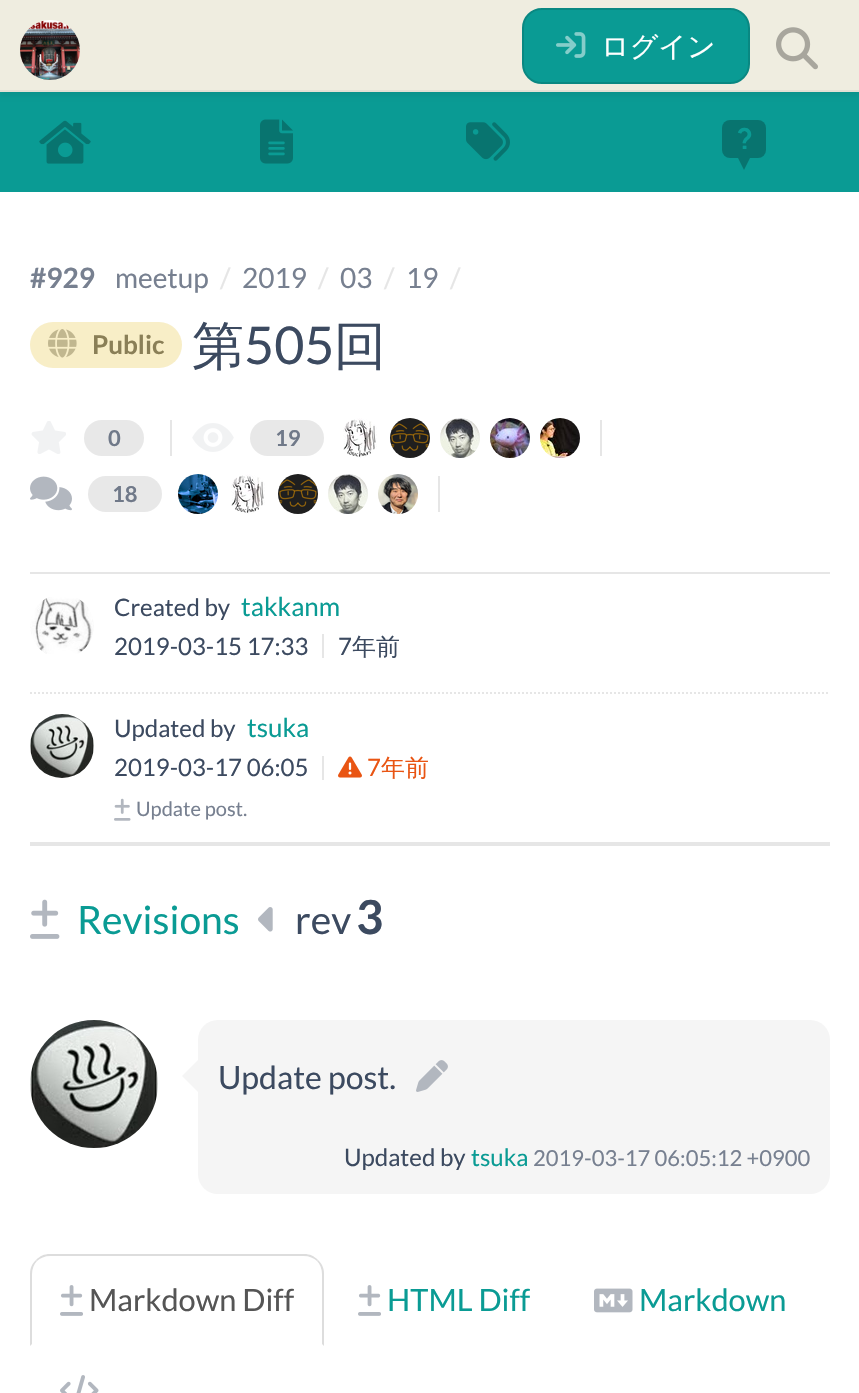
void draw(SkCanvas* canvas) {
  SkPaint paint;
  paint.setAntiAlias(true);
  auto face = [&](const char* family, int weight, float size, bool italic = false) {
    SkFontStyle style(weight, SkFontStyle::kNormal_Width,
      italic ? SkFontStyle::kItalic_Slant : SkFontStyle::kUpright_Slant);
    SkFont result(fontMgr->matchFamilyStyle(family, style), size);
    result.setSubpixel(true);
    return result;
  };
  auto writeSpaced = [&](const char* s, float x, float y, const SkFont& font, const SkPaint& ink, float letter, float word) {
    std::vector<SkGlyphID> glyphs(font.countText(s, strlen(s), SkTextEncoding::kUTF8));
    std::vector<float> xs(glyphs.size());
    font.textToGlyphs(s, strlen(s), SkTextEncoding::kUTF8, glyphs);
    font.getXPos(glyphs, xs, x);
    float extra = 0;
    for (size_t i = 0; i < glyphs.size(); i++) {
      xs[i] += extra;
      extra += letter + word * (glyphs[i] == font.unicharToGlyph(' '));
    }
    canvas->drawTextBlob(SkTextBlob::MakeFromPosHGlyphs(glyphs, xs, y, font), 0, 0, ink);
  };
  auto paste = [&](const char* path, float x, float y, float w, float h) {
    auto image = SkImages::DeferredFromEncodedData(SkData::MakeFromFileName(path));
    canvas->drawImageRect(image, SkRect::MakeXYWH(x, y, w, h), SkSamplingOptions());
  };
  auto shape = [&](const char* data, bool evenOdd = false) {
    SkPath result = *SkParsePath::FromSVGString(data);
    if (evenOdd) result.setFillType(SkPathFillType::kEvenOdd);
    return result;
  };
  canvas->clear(0xffffffff);
  paint.setColor(0xff0a9b94);
  canvas->drawRect(SkRect::MakeXYWH(0, 92, 859, 100), paint);
  paint.setColor(0x0d000000);
  paint.setMaskFilter(SkMaskFilter::MakeBlur(kNormal_SkBlurStyle, 2));
  canvas->drawRect(SkRect::MakeXYWH(0, 4, 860, 92), paint);
  paint.setMaskFilter(nullptr);
  paint.setColor(0xffefede0);
  canvas->drawRect(SkRect::MakeXYWH(0, 0, 859, 90), paint);
  paint.setColor(0xffe3e1d5);
  canvas->drawRect(SkRect::MakeXYWH(0, 90, 859, 2), paint);
  paste("img/1.png", 20, 20, 60, 60);
  paint.setColor(0xff0a9b94);
  canvas->drawRoundRect(SkRect::MakeXYWH(523, 9, 226, 74), 19, 19, paint);
  paint.setStroke(true);
  paint.setStrokeWidth(2);
  paint.setColor(0xff098882);
  canvas->drawRoundRect(SkRect::MakeXYWH(523, 9, 226, 74), 19, 19, paint);
  paste("img/2.png", 556, 32, 30, 26);
  paste("img/3.png", 776, 27, 42, 43);
  paste("img/4.png", 39, 120, 52, 44);
  paste("img/5.png", 260, 119, 33, 45);
  paste("img/6.png", 466, 122, 44, 39);
  paint.setStroke(false);
  paint.setColor(0xff08746f);
  canvas->drawRoundRect(SkRect::MakeXYWH(722, 120, 44, 38), 8, 8, paint);
  canvas->drawPath(shape("M738 158H750L744 170Z"), paint);
  paint.setColor(0xffe6e6e6);
  canvas->drawRect(SkRect::MakeXYWH(30, 842, 800, 4), paint);
  paint.setColor(0xfff8eec7);
  canvas->drawRoundRect(SkRect::MakeXYWH(30, 322, 152, 46), 23, 23, paint);
  paste("img/7.png", 48, 329, 29, 29);
  paint.setColor(0xffe6e6e6);
  canvas->drawRect(SkRect::MakeXYWH(170, 420, 2, 36), paint);
  paste("img/8.png", 31, 421, 35, 33);
  paint.setColor(0xffe8e8e8);
  canvas->drawRoundRect(SkRect::MakeXYWH(84, 420, 60, 36), 18, 18, paint);
  paint.setColor(0xffe6e6e6);
  canvas->drawRect(SkRect::MakeXYWH(600, 420, 2, 36), paint);
  paste("img/9.png", 192, 423, 42, 29);
  paint.setColor(0xffe8e8e8);
  canvas->drawRoundRect(SkRect::MakeXYWH(250, 420, 74, 36), 18, 18, paint);
  paste("img/10.png", 343, 418, 34, 40);
  paste("img/11.png", 390, 418, 40, 40);
  paste("img/12.png", 440, 418, 40, 40);
  paste("img/13.png", 490, 418, 40, 40);
  paste("img/14.png", 540, 418, 40, 40);
  paint.setColor(0xffe6e6e6);
  canvas->drawRect(SkRect::MakeXYWH(438, 476, 2, 36), paint);
  paste("img/15.png", 30, 476, 42, 35);
  paint.setColor(0xffe8e8e8);
  canvas->drawRoundRect(SkRect::MakeXYWH(88, 476, 74, 36), 18, 18, paint);
  paste("img/16.png", 178, 474, 40, 40);
  paste("img/17.png", 231, 474, 34, 40);
  paste("img/18.png", 278, 474, 40, 40);
  paste("img/19.png", 328, 474, 40, 40);
  paste("img/20.png", 378, 474, 40, 40);
  paint.setColor(0xffe6e6e6);
  canvas->drawRect(SkRect::MakeXYWH(30, 572, 800, 2), paint);
  paint.setStroke(true);
  paint.setPathEffect(SkDashPathEffect::Make({{2, 2}}, 0));
  canvas->drawPath(shape("M30 693H830"), paint);
  paint.setPathEffect(nullptr);
  paste("img/21.png", 30, 597, 64, 57);
  paint.setStroke(false);
  canvas->drawRect(SkRect::MakeXYWH(322, 634, 2, 24), paint);
  paste("img/22.png", 30, 714, 64, 64);
  canvas->drawRect(SkRect::MakeXYWH(322, 756, 2, 24), paint);
  paste("img/23.png", 338, 756, 24, 22);
  paste("img/24.png", 114, 798, 17, 23);
  paste("img/25.png", 30, 899, 30, 40);
  paste("img/26.png", 258, 907, 15, 25);
  paste("img/27.png", 30, 1020, 128, 128);
  paint.setColor(0xfff5f5f5);
  canvas->drawRoundRect(SkRect::MakeXYWH(198, 1020, 632, 174), 20, 20, paint);
  canvas->drawPath(shape("M198 1060V1092L182 1076Z"), paint);
  paste("img/28.png", 416, 1060, 32, 32);
  paint.setColor(0xffdddddd);
  canvas->drawPath(shape("M50 1254C44 1254 40 1256 36 1260L37 1261C40 1258 45 1256 50 1256H304C309 1256 314 1258 317 1261L318 1260C314 1256 310 1254 304 1254Z"), paint);
  canvas->drawPath(shape("M324 1346V1274C324 1268 322 1264 318 1260L317 1261C320 1264 322 1269 322 1274V1344Z"), paint);
  canvas->drawPath(shape("M30 1346L32 1344V1274C32 1269 34 1264 37 1261L36 1260C32 1264 30 1268 30 1274Z"), paint);
  paste("img/29.png", 60, 1285, 23, 31);
  paste("img/29.png", 358, 1285, 23, 31);
  paste("img/30.png", 594, 1288, 39, 25);
  paste("img/31.png", 60, 1375, 39, 18);
  auto f0 = face("WenQuanYi Zen Hei", 500, 28);
  paint.setColor(0xffffffff);
  canvas->drawString("ログイン", 601, 56, f0, paint);
  auto f1 = face("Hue", 500, 28);
  paint.setColor(0xff0a9b94);
  writeSpaced("?", 738, 149, f1, paint, 2, 0);
  auto f2 = face("Lato", 700, 28);
  paint.setColor(0xff778090);
  canvas->drawString("#929", 30, 288, f2, paint);
  auto f3 = face("Lato", 400, 28);
  canvas->drawString("meetup", 115, 288, f3, paint);
  paint.setColor(0xffe6e6e6);
  canvas->drawString("/", 220, 288, f3, paint);
  paint.setColor(0xff778090);
  canvas->drawString("2019", 242, 288, f3, paint);
  paint.setColor(0xffe6e6e6);
  canvas->drawString("/", 318, 288, f3, paint);
  paint.setColor(0xff778090);
  canvas->drawString("03", 340, 288, f3, paint);
  paint.setColor(0xffe6e6e6);
  canvas->drawString("/", 384, 288, f3, paint);
  paint.setColor(0xff778090);
  canvas->drawString("19", 406, 288, f3, paint);
  paint.setColor(0xffe6e6e6);
  canvas->drawString("/", 450, 288, f3, paint);
  auto f4 = face("Lato", 700, 26);
  paint.setColor(0xff8a7f57);
  canvas->drawString("Public", 92, 354, f4, paint);
  auto f5 = face("WenQuanYi Zen Hei", 500, 52);
  paint.setColor(0xff3c4a60);
  canvas->drawString("第", 192, 364, f5, paint);
  auto f6 = face("Lato", 400, 52);
  canvas->drawString("505", 244, 364, f6, paint);
  canvas->drawString("回", 334, 364, f5, paint);
  auto f7 = face("Lato", 700, 22);
  paint.setColor(0xff707989);
  {
    const struct { const char* s; float x, y; } items[] = {
      {"0", 108, 446},
      {"19", 275, 446},
      {"18", 112, 502},
    };
    for (auto [s, x, y] : items) {
      canvas->drawString(s, x, y, f7, paint);
    }
  }
  auto f8 = face("Lato", 400, 24);
  paint.setColor(0xff3c4a60);
  canvas->drawString("Created by", 114, 616, f8, paint);
  auto f9 = face("Lato", 400, 26);
  paint.setColor(0xff0a9b94);
  canvas->drawString("takkanm", 241, 616, f9, paint);
  paint.setColor(0xff3c4a60);
  canvas->drawString("2019-03-15 17:33", 114, 655, f8, paint);
  canvas->drawString("7", 338, 655, f8, paint);
  auto f10 = face("WenQuanYi Zen Hei", 500, 24);
  canvas->drawString("年前", 352, 655, f10, paint);
  canvas->drawString("Updated by", 114, 737, f8, paint);
  paint.setColor(0xff0a9b94);
  canvas->drawString("tsuka", 247, 737, f9, paint);
  paint.setColor(0xff3c4a60);
  canvas->drawString("2019-03-17 06:05", 114, 776, f8, paint);
  paint.setColor(0xffe95513);
  canvas->drawString("7", 367, 776, f8, paint);
  canvas->drawString("年前", 381, 776, f10, paint);
  auto f11 = face("Lato", 400, 20);
  paint.setColor(0xff778090);
  canvas->drawString("Update post.", 136, 816, f11, paint);
  auto f12 = face("Lato", 400, 39);
  paint.setColor(0xff0a9b94);
  canvas->drawString("Revisions", 77, 934, f12, paint);
  paint.setColor(0xff3c4a60);
  canvas->drawString("rev", 295, 934, f12, paint);
  auto f13 = face("Lato", 700, 47);
  canvas->drawString("3", 356, 934, f13, paint);
  auto f14 = face("Lato", 400, 32);
  canvas->drawString("Update post.", 218, 1089, f14, paint);
  canvas->drawString("Updated by", 344, 1166, f8, paint);
  paint.setColor(0xff0a9b94);
  canvas->drawString("tsuka", 471, 1166, f8, paint);
  auto f15 = face("Lato", 400, 22);
  paint.setColor(0xff778090);
  canvas->drawString("2019-03-17 06:05:12 +0900", 533, 1166, f15, paint);
  auto f16 = face("Lato", 400, 30.75f);
  paint.setColor(0xff555555);
  canvas->drawString("Markdown Diff", 89, 1311, f16, paint);
  paint.setColor(0xff0a9b94);
  canvas->drawString("HTML Diff", 387, 1311, f16, paint);
  canvas->drawString("Markdown", 639, 1311, f16, paint);
}
